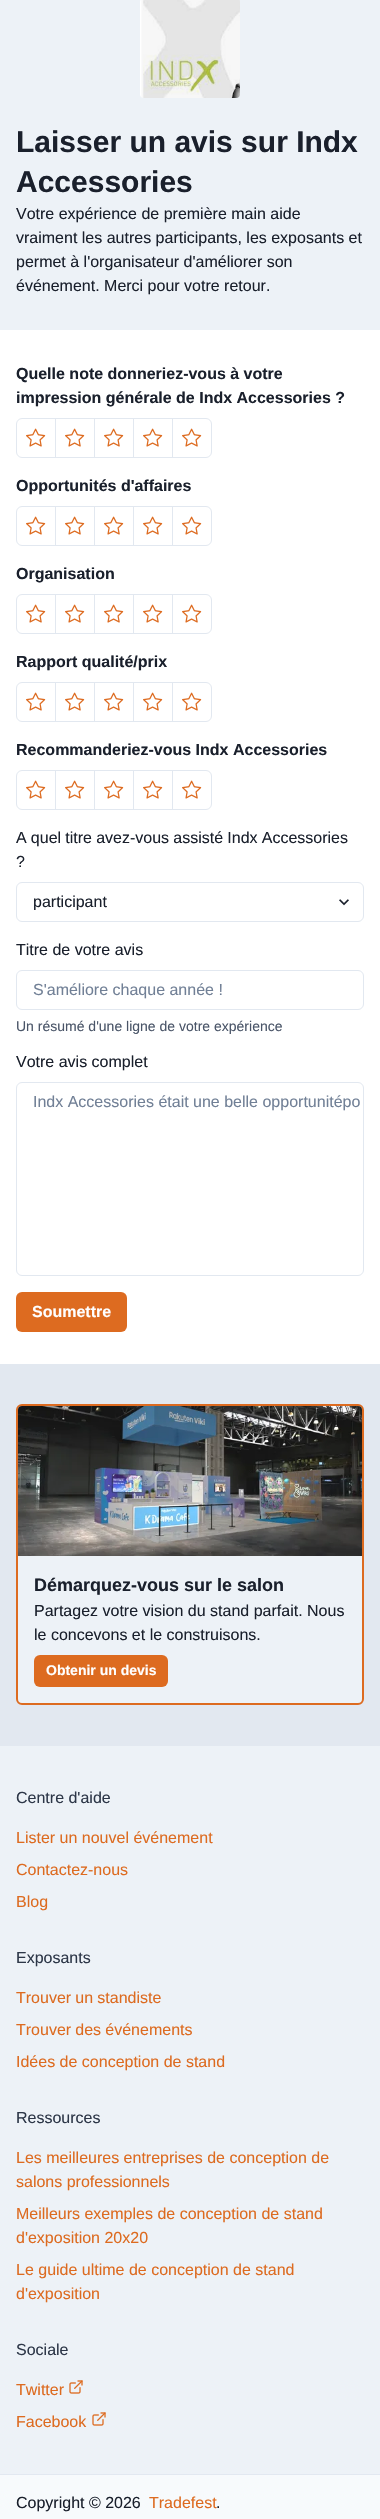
void draw(SkCanvas* canvas) {
  SkPaint paint;
  paint.setAntiAlias(true);
  auto face = [&](const char* family, int weight, float size, bool italic = false) {
    SkFontStyle style(weight, SkFontStyle::kNormal_Width,
      italic ? SkFontStyle::kItalic_Slant : SkFontStyle::kUpright_Slant);
    SkFont result(fontMgr->matchFamilyStyle(family, style), size);
    result.setSubpixel(true);
    return result;
  };
  auto writeSpaced = [&](const char* s, float x, float y, const SkFont& font, const SkPaint& ink, float letter, float word) {
    std::vector<SkGlyphID> glyphs(font.countText(s, strlen(s), SkTextEncoding::kUTF8));
    std::vector<float> xs(glyphs.size());
    font.textToGlyphs(s, strlen(s), SkTextEncoding::kUTF8, glyphs);
    font.getXPos(glyphs, xs, x);
    float extra = 0;
    for (size_t i = 0; i < glyphs.size(); i++) {
      xs[i] += extra;
      extra += letter + word * (glyphs[i] == font.unicharToGlyph(' '));
    }
    canvas->drawTextBlob(SkTextBlob::MakeFromPosHGlyphs(glyphs, xs, y, font), 0, 0, ink);
  };
  auto paste = [&](const char* path, float x, float y, float w, float h) {
    auto image = SkImages::DeferredFromEncodedData(SkData::MakeFromFileName(path));
    canvas->drawImageRect(image, SkRect::MakeXYWH(x, y, w, h), SkSamplingOptions());
  };
  auto shape = [&](const char* data, bool evenOdd = false) {
    SkPath result = *SkParsePath::FromSVGString(data);
    if (evenOdd) result.setFillType(SkPathFillType::kEvenOdd);
    return result;
  };
  canvas->clear(0xffffffff);
  paint.setColor(0xffedf2f7);
  canvas->drawRect(SkRect::MakeXYWH(0, 0, 380, 330), paint);
  paste("img/1.png", 140, 0, 100, 98);
  paint.setStroke(true);
  paint.setStrokeWidth(1);
  paint.setColor(0xffe2e8f0);
  canvas->drawPath(shape("M22 418.5H55.5V457.5H22C19 457.5 16.5 455 16.5 452V424C16.5 421 19 418.5 22 418.5Z"), paint);
  paste("img/2.png", 26, 428, 20, 19);
  canvas->drawRect(SkRect::MakeXYWH(55.5f, 418.5f, 39, 39), paint);
  paste("img/2.png", 65, 428, 20, 19);
  canvas->drawRect(SkRect::MakeXYWH(94.5f, 418.5f, 39, 39), paint);
  paste("img/2.png", 104, 428, 20, 19);
  canvas->drawRect(SkRect::MakeXYWH(133.5f, 418.5f, 39, 39), paint);
  paste("img/2.png", 143, 428, 20, 19);
  canvas->drawPath(shape("M172.5 418.5H206C209 418.5 211.5 421 211.5 424V452C211.5 455 209 457.5 206 457.5H172.5Z"), paint);
  paste("img/2.png", 182, 428, 20, 19);
  canvas->drawPath(shape("M22 506.5H55.5V545.5H22C19 545.5 16.5 543 16.5 540V512C16.5 509 19 506.5 22 506.5Z"), paint);
  paste("img/2.png", 26, 516, 20, 19);
  canvas->drawRect(SkRect::MakeXYWH(55.5f, 506.5f, 39, 39), paint);
  paste("img/2.png", 65, 516, 20, 19);
  canvas->drawRect(SkRect::MakeXYWH(94.5f, 506.5f, 39, 39), paint);
  paste("img/2.png", 104, 516, 20, 19);
  canvas->drawRect(SkRect::MakeXYWH(133.5f, 506.5f, 39, 39), paint);
  paste("img/2.png", 143, 516, 20, 19);
  canvas->drawPath(shape("M172.5 506.5H206C209 506.5 211.5 509 211.5 512V540C211.5 543 209 545.5 206 545.5H172.5Z"), paint);
  paste("img/2.png", 182, 516, 20, 19);
  canvas->drawPath(shape("M22 594.5H55.5V633.5H22C19 633.5 16.5 631 16.5 628V600C16.5 597 19 594.5 22 594.5Z"), paint);
  paste("img/2.png", 26, 604, 20, 19);
  canvas->drawRect(SkRect::MakeXYWH(55.5f, 594.5f, 39, 39), paint);
  paste("img/2.png", 65, 604, 20, 19);
  canvas->drawRect(SkRect::MakeXYWH(94.5f, 594.5f, 39, 39), paint);
  paste("img/2.png", 104, 604, 20, 19);
  canvas->drawRect(SkRect::MakeXYWH(133.5f, 594.5f, 39, 39), paint);
  paste("img/2.png", 143, 604, 20, 19);
  canvas->drawPath(shape("M172.5 594.5H206C209 594.5 211.5 597 211.5 600V628C211.5 631 209 633.5 206 633.5H172.5Z"), paint);
  paste("img/2.png", 182, 604, 20, 19);
  canvas->drawPath(shape("M22 682.5H55.5V721.5H22C19 721.5 16.5 719 16.5 716V688C16.5 685 19 682.5 22 682.5Z"), paint);
  paste("img/2.png", 26, 692, 20, 19);
  canvas->drawRect(SkRect::MakeXYWH(55.5f, 682.5f, 39, 39), paint);
  paste("img/2.png", 65, 692, 20, 19);
  canvas->drawRect(SkRect::MakeXYWH(94.5f, 682.5f, 39, 39), paint);
  paste("img/2.png", 104, 692, 20, 19);
  canvas->drawRect(SkRect::MakeXYWH(133.5f, 682.5f, 39, 39), paint);
  paste("img/2.png", 143, 692, 20, 19);
  canvas->drawPath(shape("M172.5 682.5H206C209 682.5 211.5 685 211.5 688V716C211.5 719 209 721.5 206 721.5H172.5Z"), paint);
  paste("img/2.png", 182, 692, 20, 19);
  canvas->drawPath(shape("M22 770.5H55.5V809.5H22C19 809.5 16.5 807 16.5 804V776C16.5 773 19 770.5 22 770.5Z"), paint);
  paste("img/2.png", 26, 780, 20, 19);
  canvas->drawRect(SkRect::MakeXYWH(55.5f, 770.5f, 39, 39), paint);
  paste("img/2.png", 65, 780, 20, 19);
  canvas->drawRect(SkRect::MakeXYWH(94.5f, 770.5f, 39, 39), paint);
  paste("img/2.png", 104, 780, 20, 19);
  canvas->drawRect(SkRect::MakeXYWH(133.5f, 770.5f, 39, 39), paint);
  paste("img/2.png", 143, 780, 20, 19);
  canvas->drawPath(shape("M172.5 770.5H206C209 770.5 211.5 773 211.5 776V804C211.5 807 209 809.5 206 809.5H172.5Z"), paint);
  paste("img/2.png", 182, 780, 20, 19);
  canvas->drawRoundRect(SkRect::MakeXYWH(16.5f, 882.5f, 347, 39), 5.5f, 5.5f, paint);
  paste("img/3.png", 339, 899, 10, 7);
  canvas->drawRoundRect(SkRect::MakeXYWH(16.5f, 970.5f, 347, 39), 5.5f, 5.5f, paint);
  canvas->drawRoundRect(SkRect::MakeXYWH(16.5f, 1082.5f, 347, 193), 5.5f, 5.5f, paint);
  paint.setStroke(false);
  paint.setColor(0xffdd6b20);
  canvas->drawRoundRect(SkRect::MakeXYWH(16, 1292, 111, 40), 6, 6, paint);
  paint.setColor(0xffe2e8f0);
  canvas->drawRect(SkRect::MakeXYWH(0, 1364, 380, 382), paint);
  paint.setColor(0xffedf2f7);
  canvas->drawRoundRect(SkRect::MakeXYWH(17, 1405, 346, 299), 5, 5, paint);
  paint.setStroke(true);
  paint.setStrokeWidth(2);
  paint.setColor(0xffdd6b20);
  canvas->drawRoundRect(SkRect::MakeXYWH(17, 1405, 346, 299), 5, 5, paint);
  paste("img/4.png", 18, 1406, 344, 150);
  paint.setStroke(false);
  canvas->drawRoundRect(SkRect::MakeXYWH(34, 1655, 134, 32), 6, 6, paint);
  paint.setColor(0xffedf2f7);
  canvas->drawRect(SkRect::MakeXYWH(0, 1746, 380, 728), paint);
  paste("img/5.png", 69, 2380, 14, 14);
  paste("img/5.png", 92, 2412, 14, 14);
  paint.setColor(0xfff7fafc);
  canvas->drawRect(SkRect::MakeXYWH(0, 2475, 380, 44), paint);
  paint.setColor(0xffe2e8f0);
  canvas->drawRect(SkRect::MakeXYWH(0, 2474, 380, 1), paint);
  auto f0 = face("Liberation Sans", 700, 30);
  paint.setColor(0xff1a202c);
  canvas->drawString("Laisser un avis sur Indx", 16, 152, f0, paint);
  canvas->drawString("Accessories", 16, 192, f0, paint);
  auto f1 = face("Liberation Sans", 400, 16);
  {
    const struct { const char* s; float x, y; } items[] = {
      {"Votre expérience de première main aide", 16, 219},
      {"vraiment les autres participants, les exposants et", 16, 243},
      {"permet à l'organisateur d'améliorer son", 16, 267},
      {"événement. Merci pour votre retour.", 16, 291},
    };
    for (auto [s, x, y] : items) {
      canvas->drawString(s, x, y, f1, paint);
    }
  }
  auto f2 = face("Liberation Sans", 700, 16);
  {
    const struct { const char* s; float x, y; } items[] = {
      {"Quelle note donneriez-vous à votre", 16, 379},
      {"impression générale de Indx Accessories ?", 16, 403},
      {"Opportunités d'affaires", 16, 491},
      {"Organisation", 16, 579},
      {"Rapport qualité/prix", 16, 667},
      {"Recommanderiez-vous Indx Accessories", 16, 755},
    };
    for (auto [s, x, y] : items) {
      canvas->drawString(s, x, y, f2, paint);
    }
  }
  writeSpaced("A quel titre avez-vous assisté Indx Accessories", 16, 843, f1, paint, 0, -0.25f);
  canvas->drawString("?", 16, 867, f1, paint);
  canvas->save();
  canvas->clipRect(SkRect::MakeXYWH(33, 893, 298, 17));
  canvas->drawString("participant", 33, 907, f1, paint);
  canvas->restore();
  canvas->drawString("Titre de votre avis", 16, 955, f1, paint);
  paint.setColor(0xff718096);
  canvas->drawString("S'améliore chaque année !", 33, 995, f1, paint);
  auto f3 = face("Liberation Sans", 400, 14);
  paint.setColor(0xff4a5568);
  canvas->drawString("Un résumé d'une ligne de votre expérience", 16, 1031, f3, paint);
  paint.setColor(0xff1a202c);
  canvas->drawString("Votre avis complet", 16, 1067, f1, paint);
  paint.setColor(0xff718096);
  canvas->drawString("Indx Accessories était une belle opportunitépo", 33, 1107, f1, paint);
  paint.setColor(0xffffffff);
  canvas->drawString("Soumettre", 32, 1317, f2, paint);
  auto f4 = face("Liberation Sans", 700, 18);
  paint.setColor(0xff1a202c);
  canvas->drawString("Démarquez-vous sur le salon", 34, 1591, f4, paint);
  canvas->drawString("Partagez votre vision du stand parfait. Nous", 34, 1616, f1, paint);
  canvas->drawString("le concevons et le construisons.", 34, 1640, f1, paint);
  auto f5 = face("Liberation Sans", 700, 14);
  paint.setColor(0xffffffff);
  canvas->drawString("Obtenir un devis", 46, 1675, f5, paint);
  paint.setColor(0xff2d3748);
  canvas->drawString("Centre d'aide", 16, 1803, f1, paint);
  paint.setColor(0xffdd6b20);
  {
    const struct { const char* s; float x, y; } items[] = {
      {"Lister un nouvel événement", 16, 1843},
      {"Contactez-nous", 16, 1875},
      {"Blog", 16, 1907},
    };
    for (auto [s, x, y] : items) {
      canvas->drawString(s, x, y, f1, paint);
    }
  }
  paint.setColor(0xff2d3748);
  canvas->drawString("Exposants", 16, 1963, f1, paint);
  paint.setColor(0xffdd6b20);
  writeSpaced("Trouver un standiste", 16, 2003, f1, paint, 0, -0.25f);
  writeSpaced("Trouver des événements", 16, 2035, f1, paint, 0, -0.25f);
  canvas->drawString("Idées de conception de stand", 16, 2067, f1, paint);
  paint.setColor(0xff2d3748);
  canvas->drawString("Ressources", 16, 2123, f1, paint);
  paint.setColor(0xffdd6b20);
  {
    const struct { const char* s; float x, y; } items[] = {
      {"Les meilleures entreprises de conception de", 16, 2163},
      {"salons professionnels", 16, 2187},
      {"Meilleurs exemples de conception de stand", 16, 2219},
      {"d'exposition 20x20", 16, 2243},
      {"Le guide ultime de conception de stand", 16, 2275},
      {"d'exposition", 16, 2299},
    };
    for (auto [s, x, y] : items) {
      canvas->drawString(s, x, y, f1, paint);
    }
  }
  paint.setColor(0xff2d3748);
  canvas->drawString("Sociale", 16, 2355, f1, paint);
  paint.setColor(0xffdd6b20);
  canvas->drawString("Twitter", 16, 2395, f1, paint);
  canvas->drawString("Facebook", 16, 2427, f1, paint);
  paint.setColor(0xff1a202c);
  canvas->drawString("Copyright © 2026", 16, 2508, f1, paint);
  paint.setColor(0xffdd6b20);
  canvas->drawString("Tradefest", 149, 2508, f1, paint);
  paint.setColor(0xff1a202c);
  canvas->drawString(".", 216, 2508, f1, paint);
}
